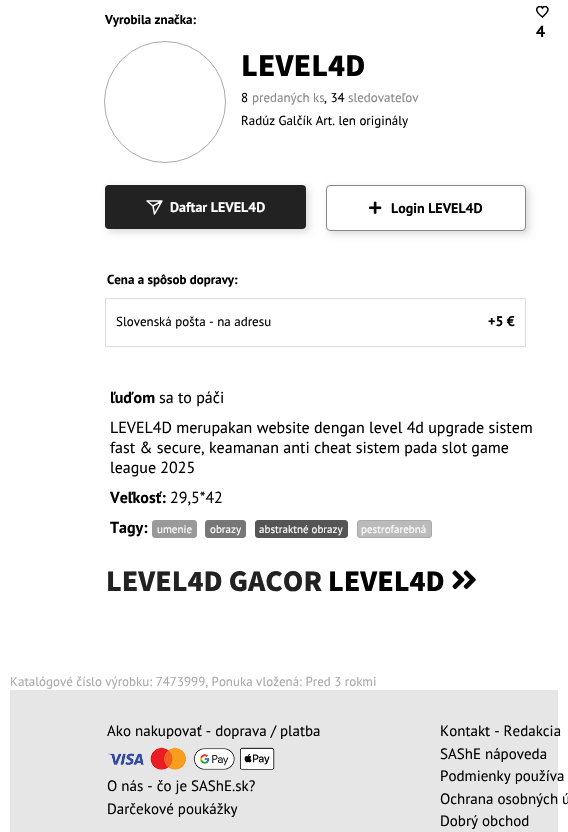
void draw(SkCanvas* canvas) {
  SkPaint paint;
  paint.setAntiAlias(true);
  auto face = [&](const char* family, int weight, float size, bool italic = false) {
    SkFontStyle style(weight, SkFontStyle::kNormal_Width,
      italic ? SkFontStyle::kItalic_Slant : SkFontStyle::kUpright_Slant);
    SkFont result(fontMgr->matchFamilyStyle(family, style), size);
    result.setSubpixel(true);
    return result;
  };
  auto paste = [&](const char* path, float x, float y, float w, float h) {
    auto image = SkImages::DeferredFromEncodedData(SkData::MakeFromFileName(path));
    canvas->drawImageRect(image, SkRect::MakeXYWH(x, y, w, h), SkSamplingOptions());
  };
  auto shape = [&](const char* data, bool evenOdd = false) {
    SkPath result = *SkParsePath::FromSVGString(data);
    if (evenOdd) result.setFillType(SkPathFillType::kEvenOdd);
    return result;
  };
  canvas->clear(0xffffffff);
  paint.setStroke(true);
  paint.setStrokeWidth(1);
  paint.setColor(0xffaaaaaa);
  canvas->drawCircle(165, 102, 60.5f, paint);
  paint.setStroke(false);
  paint.setColor(0x26000000);
  paint.setMaskFilter(SkMaskFilter::MakeBlur(kNormal_SkBlurStyle, 3.5f));
  canvas->drawRoundRect(SkRect::MakeXYWH(108, 188, 201, 44), 4, 4, paint);
  paint.setMaskFilter(nullptr);
  paint.setColor(0xff222222);
  canvas->drawRoundRect(SkRect::MakeXYWH(105, 185, 201, 44), 4, 4, paint);
  paint.setStroke(true);
  paint.setStrokeWidth(1.5f);
  paint.setStrokeCap(SkPaint::kRound_Cap);
  paint.setStrokeJoin(SkPaint::kRound_Join);
  paint.setColor(0xffffffff);
  canvas->drawPath(shape("M147 201H162L154.5 214L153 206ZM153 206L162 201"), paint);
  paint.setStroke(false);
  paint.setColor(0x26000000);
  paint.setMaskFilter(SkMaskFilter::MakeBlur(kNormal_SkBlurStyle, 3.5f));
  canvas->drawRoundRect(SkRect::MakeXYWH(329, 188, 200, 46), 4, 4, paint);
  paint.setMaskFilter(nullptr);
  paint.setColor(0xffffffff);
  canvas->drawRoundRect(SkRect::MakeXYWH(326.5f, 185.5f, 199, 45), 3.5f, 3.5f, paint);
  paint.setStroke(true);
  paint.setStrokeWidth(1);
  paint.setStrokeCap(SkPaint::kButt_Cap);
  paint.setStrokeJoin(SkPaint::kMiter_Join);
  paint.setColor(0xff888888);
  canvas->drawRoundRect(SkRect::MakeXYWH(326.5f, 185.5f, 199, 45), 3.5f, 3.5f, paint);
  paste("img/1.png", 369, 201, 13, 13);
  paint.setColor(0xffdddddd);
  canvas->drawRect(SkRect::MakeXYWH(105.5f, 298.5f, 420, 48), paint);
  canvas->save();
  canvas->clipRect(SkRect::MakeXYWH(536, 6, 15, 15));
  paint.setStrokeWidth(1.5f);
  paint.setColor(0xff000000);
  canvas->drawPath(shape("M542.5 8C545 4 552 8.5 544.5 15L542.5 17L540 15C532.5 8.5 540 4 542.5 8Z"), paint);
  canvas->restore();
  paint.setStroke(false);
  paint.setColor(0xff999999);
  canvas->drawRoundRect(SkRect::MakeXYWH(152.5f, 520.5f, 44, 17), 2.5f, 2.5f, paint);
  paint.setStroke(true);
  paint.setStrokeWidth(1);
  canvas->drawRoundRect(SkRect::MakeXYWH(152.5f, 520.5f, 44, 17), 2.5f, 2.5f, paint);
  paint.setStroke(false);
  paint.setColor(0xff777777);
  canvas->drawRoundRect(SkRect::MakeXYWH(205.5f, 520.5f, 40, 17), 2.5f, 2.5f, paint);
  paint.setStroke(true);
  canvas->drawRoundRect(SkRect::MakeXYWH(205.5f, 520.5f, 40, 17), 2.5f, 2.5f, paint);
  paint.setStroke(false);
  paint.setColor(0xff555555);
  canvas->drawRoundRect(SkRect::MakeXYWH(255.5f, 520.5f, 92, 17), 2.5f, 2.5f, paint);
  paint.setStroke(true);
  canvas->drawRoundRect(SkRect::MakeXYWH(255.5f, 520.5f, 92, 17), 2.5f, 2.5f, paint);
  paint.setStroke(false);
  paint.setColor(0xffbbbbbb);
  canvas->drawRoundRect(SkRect::MakeXYWH(357.5f, 520.5f, 74, 17), 2.5f, 2.5f, paint);
  paint.setStroke(true);
  paint.setColor(0xffaaaaaa);
  canvas->drawRoundRect(SkRect::MakeXYWH(357.5f, 520.5f, 74, 17), 2.5f, 2.5f, paint);
  paste("img/2.png", 452, 570, 24, 20);
  paint.setStroke(false);
  paint.setColor(0xffe6e6e6);
  canvas->drawRect(SkRect::MakeXYWH(10, 690, 548, 142), paint);
  paste("img/3.png", 108, 747, 167, 23);
  auto f0 = face("PT Sans", 700, 13);
  paint.setColor(0xff000000);
  canvas->drawString("Vyrobila značka:", 105, 24, f0, paint);
  auto f1 = face("Source Sans 3", 800, 32);
  canvas->drawString("LEVEL4D", 241, 76, f1, paint);
  auto f2 = face("PT Sans", 400, 13);
  canvas->drawString("8", 241, 102, f2, paint);
  paint.setColor(0xff888888);
  canvas->drawString("predaných ks", 252, 102, f2, paint);
  paint.setColor(0xff000000);
  canvas->drawString(", 34", 324, 102, f2, paint);
  paint.setColor(0xff888888);
  canvas->drawString("sledovateľov", 348, 102, f2, paint);
  paint.setColor(0xff000000);
  canvas->drawString("Radúz Galčík Art. len originály", 241, 125, f2, paint);
  auto f3 = face("PT Sans", 700, 14);
  paint.setColor(0xffffffff);
  canvas->drawString("Daftar LEVEL4D", 170, 212, f3, paint);
  paint.setColor(0xff000000);
  canvas->drawString("Login LEVEL4D", 391, 213, f3, paint);
  canvas->drawString("Cena a spôsob dopravy:", 107, 284, f0, paint);
  canvas->drawString("Slovenská pošta - na adresu", 116, 326, f2, paint);
  canvas->drawString("+5 €", 488, 326, f3, paint);
  auto f4 = face("PT Sans", 700, 16);
  canvas->drawString("4", 536, 37, f4, paint);
  canvas->drawString("ľuďom", 110, 403, f4, paint);
  auto f5 = face("PT Sans", 400, 16);
  {
    const struct { const char* s; float x, y; } items[] = {
      {"sa to páči", 159, 403},
      {"LEVEL4D merupakan website dengan level 4d upgrade sistem", 110, 433},
      {"fast & secure, keamanan anti cheat sistem pada slot game", 110, 453},
      {"league 2025", 110, 473},
    };
    for (auto [s, x, y] : items) {
      canvas->drawString(s, x, y, f5, paint);
    }
  }
  canvas->drawString("Veľkosť:", 110, 503, f4, paint);
  canvas->drawString("29,5*42", 170, 503, f5, paint);
  canvas->drawString("Tagy:", 110, 533, f4, paint);
  auto f6 = face("PT Sans", 400, 11);
  paint.setColor(0xffffffff);
  {
    const struct { const char* s; float x, y; } items[] = {
      {"umenie", 157, 533},
      {"obrazy", 210, 533},
      {"abstraktné obrazy", 259, 533},
      {"pestrofarebná", 361, 533},
    };
    for (auto [s, x, y] : items) {
      canvas->drawString(s, x, y, f6, paint);
    }
  }
  auto f7 = face("Source Sans 3", 800, 30);
  paint.setColor(0xff222222);
  canvas->drawString("LEVEL4D GACOR", 106, 591, f7, paint);
  paint.setColor(0xff000000);
  canvas->drawString("LEVEL4D", 328, 591, f7, paint);
  paint.setColor(0xffaaaaaa);
  canvas->drawString("Katalógové číslo výrobku: 7473999, Ponuka vložená: Pred 3 rokmi", 10, 686, f2, paint);
  auto f8 = face("PT Sans", 400, 15);
  paint.setColor(0xff000000);
  {
    const struct { const char* s; float x, y; } items[] = {
      {"Ako nakupovať - doprava / platba", 107, 736},
      {"O nás - čo je SAShE.sk?", 107, 791},
      {"Darčekové poukážky", 107, 814},
      {"Kontakt - Redakcia", 440, 736},
      {"SAShE nápoveda", 440, 759},
      {"Podmienky používa", 440, 781},
      {"Ochrana osobných ú", 440, 804},
      {"Dobrý obchod", 440, 826},
    };
    for (auto [s, x, y] : items) {
      canvas->drawString(s, x, y, f8, paint);
    }
  }
}
